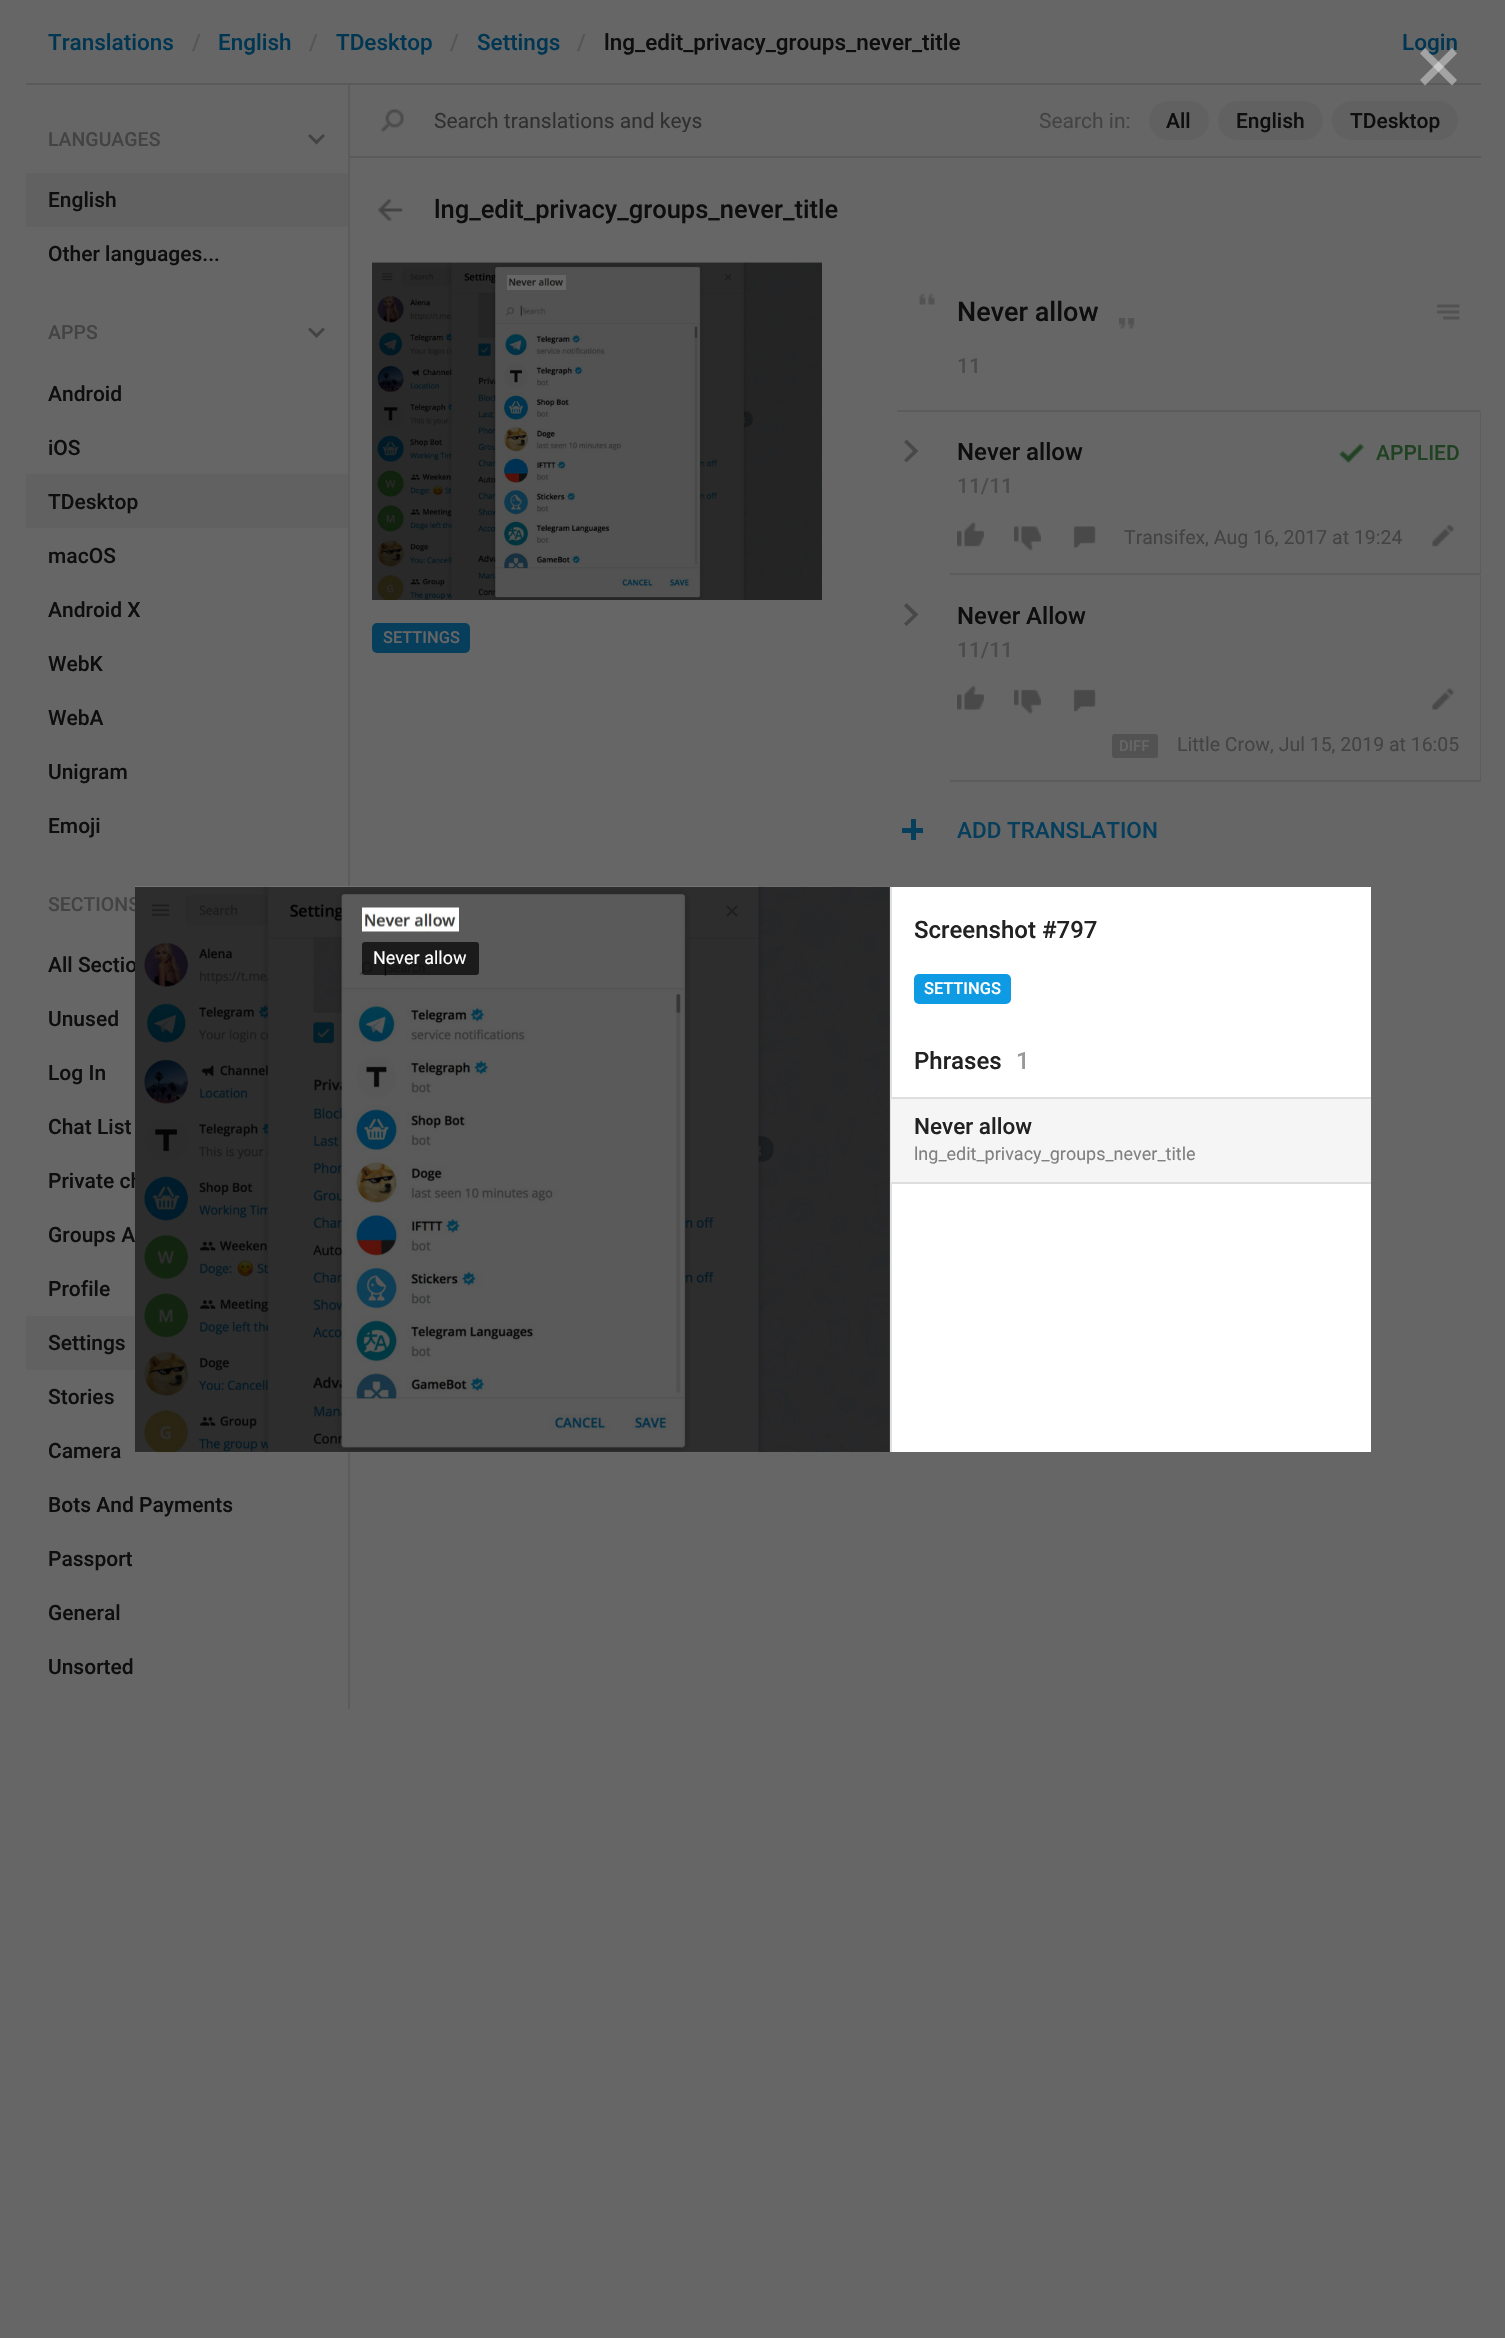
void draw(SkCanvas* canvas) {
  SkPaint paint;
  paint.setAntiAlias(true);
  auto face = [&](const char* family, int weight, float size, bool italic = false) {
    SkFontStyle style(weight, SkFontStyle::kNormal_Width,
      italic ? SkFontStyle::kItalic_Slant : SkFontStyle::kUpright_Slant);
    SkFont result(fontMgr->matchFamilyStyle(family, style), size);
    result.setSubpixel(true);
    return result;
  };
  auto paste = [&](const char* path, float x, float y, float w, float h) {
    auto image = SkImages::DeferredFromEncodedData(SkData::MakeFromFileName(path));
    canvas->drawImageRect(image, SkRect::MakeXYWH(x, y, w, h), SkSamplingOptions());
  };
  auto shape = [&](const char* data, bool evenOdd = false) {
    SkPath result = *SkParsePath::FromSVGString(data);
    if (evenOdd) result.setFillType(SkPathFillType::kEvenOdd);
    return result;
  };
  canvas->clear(0xff666666);
  {
    const struct { float x, y, w, h; SkColor color; } items[] = {
      {348, 84, 2, 1625, 0xff5c5c5c},
      {26, 83, 1455, 2, 0xff5a5a5a},
      {350, 156, 1131, 2, 0xff5a5a5a},
    };
    for (auto [x, y, w, h, color] : items) {
      paint.setColor(color);
      canvas->drawRect(SkRect::MakeXYWH(x, y, w, h), paint);
    }
  }
  paste("img/1.png", 381, 109, 23, 23);
  paint.setColor(0xff616161);
  canvas->drawRoundRect(SkRect::MakeXYWH(1149, 101, 60, 39), 19.5f, 19.5f, paint);
  canvas->drawRoundRect(SkRect::MakeXYWH(1218, 101, 105, 39), 19.5f, 19.5f, paint);
  canvas->drawRoundRect(SkRect::MakeXYWH(1332, 101, 126, 39), 19.5f, 19.5f, paint);
  paint.setColor(0xff434343);
  canvas->drawPath(shape("M316.5 144.5L308 136L310 134L318.5 142Z"), paint);
  canvas->drawPath(shape("M316.5 144.5L314.5 142L323 134L325 136Z"), paint);
  paint.setColor(0xff616161);
  canvas->drawRect(SkRect::MakeXYWH(26, 173, 322, 54), paint);
  paint.setColor(0xff434343);
  canvas->drawPath(shape("M316.5 338L308 329.5L310 327.5L318.5 335.5Z"), paint);
  canvas->drawPath(shape("M316.5 338L314.5 335.5L323 327.5L325 329.5Z"), paint);
  paint.setColor(0xff616161);
  canvas->drawRect(SkRect::MakeXYWH(26, 474, 322, 54), paint);
  canvas->drawRect(SkRect::MakeXYWH(26, 1316, 109, 54), paint);
  paste("img/2.png", 378, 199, 25, 22);
  paste("img/3.png", 372, 262, 450, 338);
  paste("img/4.png", 507, 275, 59, 15);
  paint.setColor(0xff063e5b);
  canvas->drawRoundRect(SkRect::MakeXYWH(372, 623, 98, 30), 5, 5, paint);
  paste("img/5.png", 919, 293, 16, 12);
  paste("img/6.png", 1119, 318, 16, 11);
  paste("img/7.png", 1437, 304, 23, 16);
  paint.setColor(0xff5c5c5c);
  canvas->drawRect(SkRect::MakeXYWH(897, 410, 584, 2), paint);
  canvas->save();
  canvas->clipRect(SkRect::MakeXYWH(860, 411, 621, 372));
  canvas->drawPath(shape("M950 573V575H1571V413H1480V573Z"), paint);
  canvas->restore();
  paint.setColor(0xff484848);
  canvas->drawPath(shape("M913 451L904 442L906.5 439.5L918.5 451L906.5 462.5L904 460Z"), paint);
  paste("img/8.png", 957, 522, 27, 25);
  paste("img/9.png", 1014, 526, 27, 25);
  paste("img/10.png", 1073, 526, 23, 22);
  paste("img/11.png", 1432, 524, 22, 23);
  paste("img/12.png", 1339, 443, 25, 20);
  canvas->save();
  canvas->clipRect(SkRect::MakeXYWH(860, 411, 621, 372));
  paint.setColor(0xff5c5c5c);
  canvas->drawPath(shape("M950 780V782H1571V576H1480V780Z"), paint);
  canvas->restore();
  paint.setColor(0xff484848);
  canvas->drawPath(shape("M913 615L904 623.5L906.5 626L918.5 614.5L906.5 603L904 606Z"), paint);
  paste("img/13.png", 957, 685, 27, 25);
  paste("img/14.png", 1014, 689, 27, 26);
  paste("img/15.png", 1073, 689, 23, 23);
  paste("img/16.png", 1432, 688, 22, 22);
  paint.setColor(0xff525252);
  canvas->drawRoundRect(SkRect::MakeXYWH(1112, 734, 46, 24), 3, 3, paint);
  {
    const struct { float x, y, w, h; SkColor color; } items[] = {
      {902, 828, 21, 5, 0xff063e5b},
      {911, 819, 5, 21, 0xff063e5b},
      {892, 887, 479, 565, 0xffffffff},
    };
    for (auto [x, y, w, h, color] : items) {
      paint.setColor(color);
      canvas->drawRect(SkRect::MakeXYWH(x, y, w, h), paint);
    }
  }
  paint.setColor(0xff0f9ae4);
  canvas->drawRoundRect(SkRect::MakeXYWH(914, 974, 97, 30), 5, 5, paint);
  auto f0 = face("Roboto", 500, 22.5f);
  paint.setColor(0xff003652);
  canvas->drawString("Translations", 48, 50, f0, paint);
  paint.setColor(0xff555555);
  canvas->drawString("/", 192, 50, f0, paint);
  paint.setColor(0xff003652);
  canvas->drawString("English", 218, 50, f0, paint);
  paint.setColor(0xff555555);
  canvas->drawString("/", 309, 50, f0, paint);
  paint.setColor(0xff003652);
  canvas->drawString("TDesktop", 336, 50, f0, paint);
  paint.setColor(0xff555555);
  canvas->drawString("/", 450, 50, f0, paint);
  paint.setColor(0xff003652);
  canvas->drawString("Settings", 477, 50, f0, paint);
  paint.setColor(0xff555555);
  canvas->drawString("/", 577, 50, f0, paint);
  paint.setColor(0xff0e0e0e);
  canvas->drawString("lng_edit_privacy_groups_never_title", 604, 50, f0, paint);
  paint.setColor(0xff003652);
  canvas->drawString("Login", 1402, 50, f0, paint);
  canvas->save();
  canvas->clipRect(SkRect::MakeXYWH(434, 108, 460, 24));
  auto f1 = face("Roboto", 400, 21);
  paint.setColor(0xff303030);
  canvas->drawString("Search translations and keys", 434, 128, f1, paint);
  canvas->restore();
  paint.setColor(0xff434343);
  canvas->drawString("Search in:", 1039, 128, f1, paint);
  auto f2 = face("Roboto", 500, 21);
  paint.setColor(0xff0e0e0e);
  {
    const struct { const char* s; float x, y; } items[] = {
      {"All", 1166, 128},
      {"English", 1236, 128},
      {"TDesktop", 1350, 128},
    };
    for (auto [s, x, y] : items) {
      canvas->drawString(s, x, y, f2, paint);
    }
  }
  auto f3 = face("Roboto", 500, 19.5f);
  paint.setColor(0xff434343);
  canvas->drawString("LANGUAGES", 48, 146, f3, paint);
  paint.setColor(0xff0e0e0e);
  canvas->drawString("English", 48, 207, f2, paint);
  canvas->drawString("Other languages...", 48, 261, f2, paint);
  paint.setColor(0xff434343);
  canvas->drawString("APPS", 48, 339, f3, paint);
  paint.setColor(0xff0e0e0e);
  {
    const struct { const char* s; float x, y; } items[] = {
      {"Android", 48, 401},
      {"iOS", 48, 455},
      {"TDesktop", 48, 509},
      {"macOS", 48, 563},
      {"Android X", 48, 617},
      {"WebK", 48, 671},
      {"WebA", 48, 725},
      {"Unigram", 48, 779},
      {"Emoji", 48, 833},
    };
    for (auto [s, x, y] : items) {
      canvas->drawString(s, x, y, f2, paint);
    }
  }
  paint.setColor(0xff434343);
  canvas->drawString("SECTIONS", 48, 911, f3, paint);
  paint.setColor(0xff0e0e0e);
  {
    const struct { const char* s; float x, y; } items[] = {
      {"All Sectio", 48, 972},
      {"Unused", 48, 1026},
      {"Log In", 48, 1080},
      {"Chat List", 48, 1134},
      {"Private ch", 48, 1188},
      {"Groups A", 48, 1242},
      {"Profile", 48, 1296},
      {"Settings", 48, 1350},
      {"Stories", 48, 1404},
      {"Camera", 48, 1458},
      {"Bots And Payments", 48, 1512},
      {"Passport", 48, 1566},
      {"General", 48, 1620},
      {"Unsorted", 48, 1674},
    };
    for (auto [s, x, y] : items) {
      canvas->drawString(s, x, y, f2, paint);
    }
  }
  auto f4 = face("Roboto", 500, 25.5f);
  canvas->drawString("lng_edit_privacy_groups_never_title", 434, 218, f4, paint);
  auto f5 = face("Roboto", 500, 16.5f);
  paint.setColor(0xff666666);
  canvas->drawString("SETTINGS", 383, 643, f5, paint);
  auto f6 = face("Roboto", 500, 27);
  paint.setColor(0xff0e0e0e);
  canvas->drawString("Never allow", 957, 321, f6, paint);
  paint.setColor(0xff4b4b4b);
  canvas->drawString("11", 957, 373, f2, paint);
  auto f7 = face("Roboto", 500, 24);
  paint.setColor(0xff0e0e0e);
  canvas->drawString("Never allow", 957, 460, f7, paint);
  paint.setColor(0xff4b4b4b);
  canvas->drawString("11/11", 957, 493, f2, paint);
  auto f8 = face("Roboto", 400, 19.5f);
  paint.setColor(0xff434343);
  canvas->drawString("Transifex", 1124, 544, f8, paint);
  canvas->drawString(", Aug 16, 2017 at 19:24", 1205, 544, f8, paint);
  paint.setColor(0xff204223);
  canvas->drawString("APPLIED", 1376, 460, f2, paint);
  paint.setColor(0xff0e0e0e);
  canvas->drawString("Never Allow", 957, 624, f7, paint);
  paint.setColor(0xff4b4b4b);
  canvas->drawString("11/11", 957, 657, f2, paint);
  auto f9 = face("Roboto", 500, 15);
  paint.setColor(0xff666666);
  canvas->drawString("DIFF", 1119, 751, f9, paint);
  paint.setColor(0xff434343);
  canvas->drawString("Little Crow", 1177, 751, f8, paint);
  canvas->drawString(", Jul 15, 2019 at 16:05", 1270, 751, f8, paint);
  paint.setColor(0xff063e5b);
  canvas->drawString("ADD TRANSLATION", 957, 838, f0, paint);
  paint.setColor(0x66ffffff);
  canvas->drawPath(shape("M1425 48L1457 80L1452 85.5L1420 53.5Z"), paint);
  canvas->drawPath(shape("M1420 80L1452 48L1457 53.5L1425 85.5Z"), paint);
  paint.setColor(0xffe0e0e0);
  canvas->drawRect(SkRect::MakeXYWH(135, 887, 757, 565), paint);
  paste("img/17.png", 135, 886, 755, 567);
  paint.setColor(0x33000000);
  canvas->drawRect(SkRect::MakeXYWH(135, 887, 755, 565), paint);
  paint.setColor(0x8f000000);
  canvas->drawRect(SkRect::MakeXYWH(135, 887, 755, 565), paint);
  paste("img/18.png", 362, 907, 97, 25);
  paint.setColor(0xb3000000);
  canvas->drawRoundRect(SkRect::MakeXYWH(362, 942, 117, 33), 3, 3, paint);
  auto f10 = face("Roboto", 400, 18);
  paint.setColor(0xffffffff);
  canvas->drawString("Never allow", 373, 964, f10, paint);
  paint.setColor(0xff222222);
  canvas->drawString("Screenshot #797", 914, 938, f7, paint);
  paint.setColor(0xffffffff);
  canvas->drawString("SETTINGS", 924, 994, f5, paint);
  paint.setColor(0xff222222);
  canvas->drawString("Phrases", 914, 1069, f7, paint);
  paint.setColor(0xff999999);
  canvas->drawString("1", 1016, 1069, f7, paint);
  {
    const struct { float x, y, w, h; SkColor color; } items[] = {
      {891, 1099, 480, 83, 0xfff5f5f5},
      {891, 1097, 480, 2, 0xffdedede},
      {891, 1182, 480, 2, 0xffdedede},
    };
    for (auto [x, y, w, h, color] : items) {
      paint.setColor(color);
      canvas->drawRect(SkRect::MakeXYWH(x, y, w, h), paint);
    }
  }
  paint.setColor(0xff222222);
  canvas->drawString("Never allow", 914, 1134, f0, paint);
  paint.setColor(0xff808080);
  canvas->drawString("lng_edit_privacy_groups_never_title", 914, 1160, f10, paint);
}
